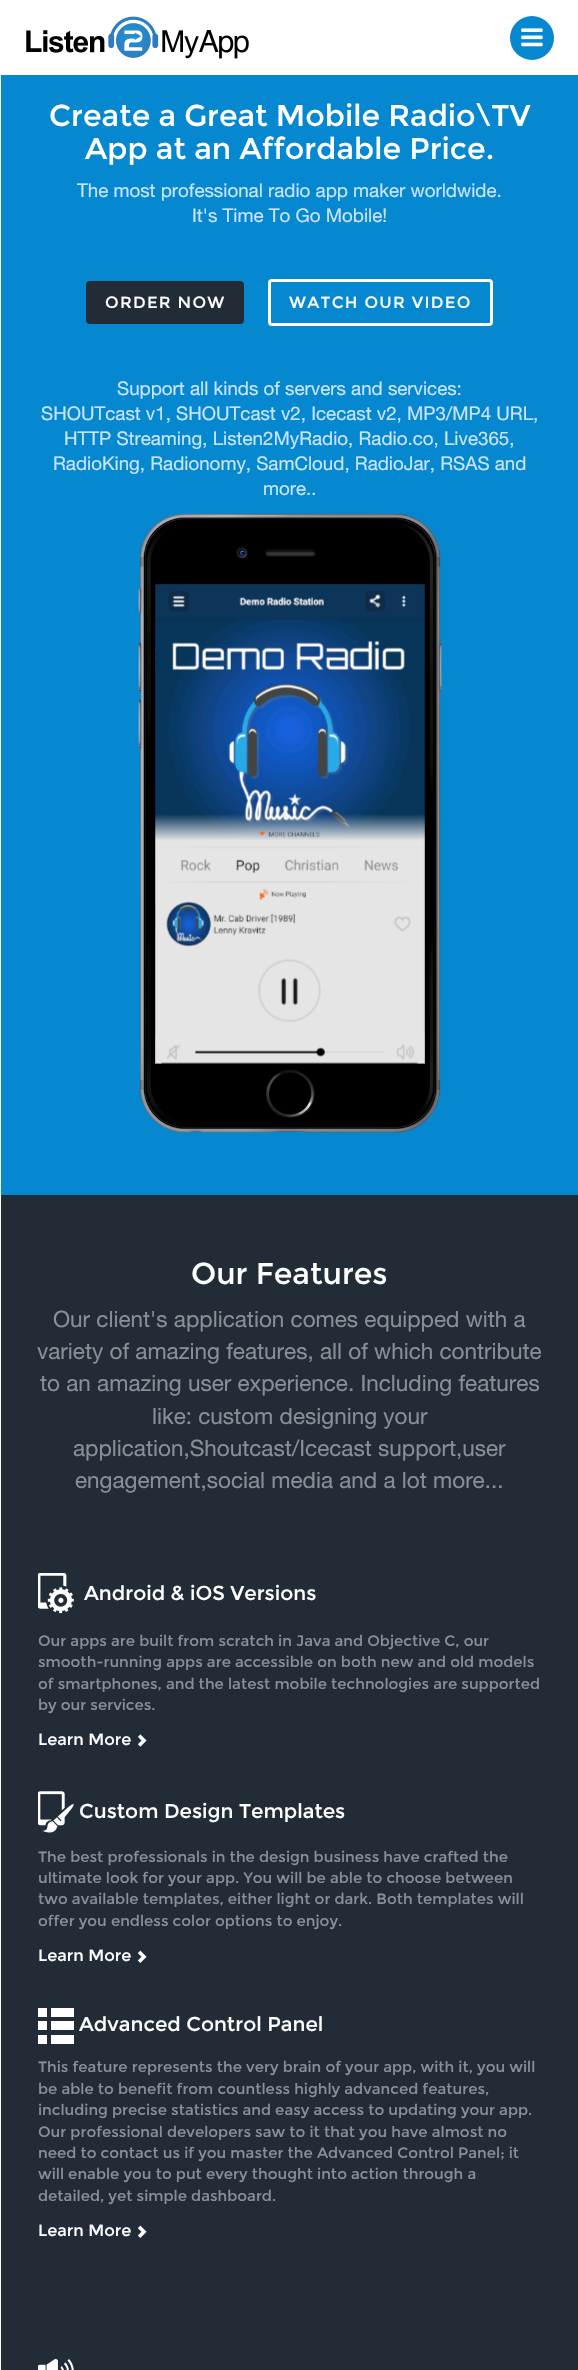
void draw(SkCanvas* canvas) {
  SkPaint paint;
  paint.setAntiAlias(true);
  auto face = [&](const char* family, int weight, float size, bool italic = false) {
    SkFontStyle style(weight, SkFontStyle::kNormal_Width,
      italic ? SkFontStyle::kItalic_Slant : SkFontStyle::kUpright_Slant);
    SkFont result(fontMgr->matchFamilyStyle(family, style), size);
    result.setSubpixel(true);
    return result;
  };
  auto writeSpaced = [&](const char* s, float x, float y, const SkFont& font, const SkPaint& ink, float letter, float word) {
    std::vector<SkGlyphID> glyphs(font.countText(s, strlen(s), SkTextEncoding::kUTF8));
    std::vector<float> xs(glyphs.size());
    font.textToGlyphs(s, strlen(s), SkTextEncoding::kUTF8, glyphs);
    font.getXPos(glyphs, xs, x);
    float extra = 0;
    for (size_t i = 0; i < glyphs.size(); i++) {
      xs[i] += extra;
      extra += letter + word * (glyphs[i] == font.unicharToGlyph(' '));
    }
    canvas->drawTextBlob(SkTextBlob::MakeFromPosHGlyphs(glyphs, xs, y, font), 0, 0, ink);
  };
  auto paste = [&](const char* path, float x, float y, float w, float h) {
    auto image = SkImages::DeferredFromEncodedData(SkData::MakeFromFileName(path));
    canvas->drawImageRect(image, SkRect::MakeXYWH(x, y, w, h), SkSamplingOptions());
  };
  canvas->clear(0xffffffff);
  paste("img/1.png", 26, 16, 223, 43);
  paint.setColor(0xff0588d0);
  canvas->drawCircle(532, 38, 22, paint);
  paste("img/2.png", 521, 28, 22, 19);
  canvas->drawRect(SkRect::MakeXYWH(1, 75, 577, 1120), paint);
  paint.setColor(0xff222c36);
  canvas->drawRoundRect(SkRect::MakeXYWH(86, 281, 158, 43), 4, 4, paint);
  paint.setStroke(true);
  paint.setStrokeWidth(3);
  paint.setColor(0xffffffff);
  canvas->drawRoundRect(SkRect::MakeXYWH(269.5f, 280.5f, 222, 44), 2.5f, 2.5f, paint);
  paste("img/3.png", 138, 513, 304, 620);
  paste("img/4.png", 155, 584, 1, 480);
  paste("img/5.png", 155, 584, 270, 480);
  paste("img/6.png", 424, 816, 1, 248);
  paint.setStroke(false);
  paint.setColor(0xff222c36);
  canvas->drawRect(SkRect::MakeXYWH(1, 1195, 577, 1175), paint);
  paste("img/7.png", 38, 1573, 36, 41);
  paste("img/8.png", 137, 1734, 10, 13);
  paste("img/9.png", 38, 1791, 36, 42);
  paste("img/10.png", 137, 1950, 10, 13);
  {
    const struct { float x, y, w, h; SkColor color; } items[] = {
      {38, 2008, 9, 9, 0xffffffff},
      {51, 2008, 23, 9, 0xffffffff},
      {38, 2021, 9, 9, 0xffffffff},
      {51, 2021, 23, 9, 0xffffffff},
      {38, 2035, 9, 9, 0xffffffff},
      {51, 2035, 23, 9, 0xffffffff},
    };
    for (auto [x, y, w, h, color] : items) {
      paint.setColor(color);
      canvas->drawRect(SkRect::MakeXYWH(x, y, w, h), paint);
    }
  }
  paste("img/10.png", 137, 2225, 10, 13);
  paste("img/11.png", 38, 2359, 36, 11);
  auto f0 = face("Montserrat", 400, 30);
  canvas->drawString("Create a Great Mobile Radio\\TV", 49, 126, f0, paint);
  canvas->drawString("App at an Affordable Price.", 85, 159, f0, paint);
  auto f1 = face("Helvetica Neue", 400, 18.75f);
  paint.setColor(0xffcae5ff);
  canvas->drawString("The most professional radio app maker worldwide.", 77, 197, f1, paint);
  canvas->drawString("It's Time To Go Mobile!", 192, 222, f1, paint);
  auto f2 = face("Montserrat", 400, 16.25f);
  paint.setColor(0xffffffff);
  writeSpaced("ORDER NOW", 105, 308, f2, paint, 1.25f, 0);
  writeSpaced("WATCH OUR VIDEO", 289, 308, f2, paint, 1.25f, 0);
  paint.setColor(0xffcae5ff);
  {
    const struct { const char* s; float x, y; } items[] = {
      {"Support all kinds of servers and services:", 117, 395},
      {"SHOUTcast v1, SHOUTcast v2, Icecast v2, MP3/MP4 URL,", 41, 420},
      {"HTTP Streaming, Listen2MyRadio, Radio.co, Live365,", 64, 445},
      {"RadioKing, Radionomy, SamCloud, RadioJar, RSAS and", 53, 470},
      {"more..", 263, 495},
    };
    for (auto [s, x, y] : items) {
      canvas->drawString(s, x, y, f1, paint);
    }
  }
  paint.setColor(0xffffffff);
  canvas->drawString("Our Features", 191, 1284, f0, paint);
  auto f3 = face("Helvetica Neue", 400, 22.5f);
  paint.setColor(0xff888f96);
  {
    const struct { const char* s; float x, y; } items[] = {
      {"Our client's application comes equipped with a", 53, 1327},
      {"variety of amazing features, all of which contribute", 37, 1359},
      {"to an amazing user experience. Including features", 40, 1391},
      {"like: custom designing your", 152, 1424},
      {"application,Shoutcast/Icecast support,user", 73, 1456},
      {"engagement,social media and a lot more...", 75, 1488},
    };
    for (auto [s, x, y] : items) {
      canvas->drawString(s, x, y, f3, paint);
    }
  }
  auto f4 = face("Montserrat", 400, 20);
  paint.setColor(0xffffffff);
  canvas->drawString("Android & iOS Versions", 84, 1600, f4, paint);
  auto f5 = face("Montserrat", 400, 15);
  paint.setColor(0xff888f96);
  {
    const struct { const char* s; float x, y; } items[] = {
      {"Our apps are built from scratch in Java and Objective C, our", 38, 1646},
      {"smooth-running apps are accessible on both new and old models", 38, 1667},
      {"of smartphones, and the latest mobile technologies are supported", 38, 1689},
      {"by our services.", 38, 1710},
    };
    for (auto [s, x, y] : items) {
      canvas->drawString(s, x, y, f5, paint);
    }
  }
  paint.setColor(0xffffffff);
  canvas->drawString("Learn More", 38, 1745, f2, paint);
  canvas->drawString("Custom Design Templates", 79, 1818, f4, paint);
  paint.setColor(0xff888f96);
  {
    const struct { const char* s; float x, y; } items[] = {
      {"The best professionals in the design business have crafted the", 38, 1862},
      {"ultimate look for your app. You will be able to choose between", 38, 1883},
      {"two available templates, either light or dark. Both templates will", 38, 1904},
      {"offer you endless color options to enjoy.", 38, 1926},
    };
    for (auto [s, x, y] : items) {
      canvas->drawString(s, x, y, f5, paint);
    }
  }
  paint.setColor(0xffffffff);
  canvas->drawString("Learn More", 38, 1961, f2, paint);
  canvas->drawString("Advanced Control Panel", 79, 2031, f4, paint);
  paint.setColor(0xff888f96);
  {
    const struct { const char* s; float x, y; } items[] = {
      {"This feature represents the very brain of your app, with it, you will", 38, 2072},
      {"be able to benefit from countless highly advanced features,", 38, 2094},
      {"including precise statistics and easy access to updating your app.", 38, 2115},
      {"Our professional developers saw to it that you have almost no", 38, 2137},
      {"need to contact us if you master the Advanced Control Panel; it", 38, 2158},
      {"will enable you to put every thought into action through a", 38, 2179},
      {"detailed, yet simple dashboard.", 38, 2201},
    };
    for (auto [s, x, y] : items) {
      canvas->drawString(s, x, y, f5, paint);
    }
  }
  paint.setColor(0xffffffff);
  canvas->drawString("Learn More", 38, 2236, f2, paint);
}
